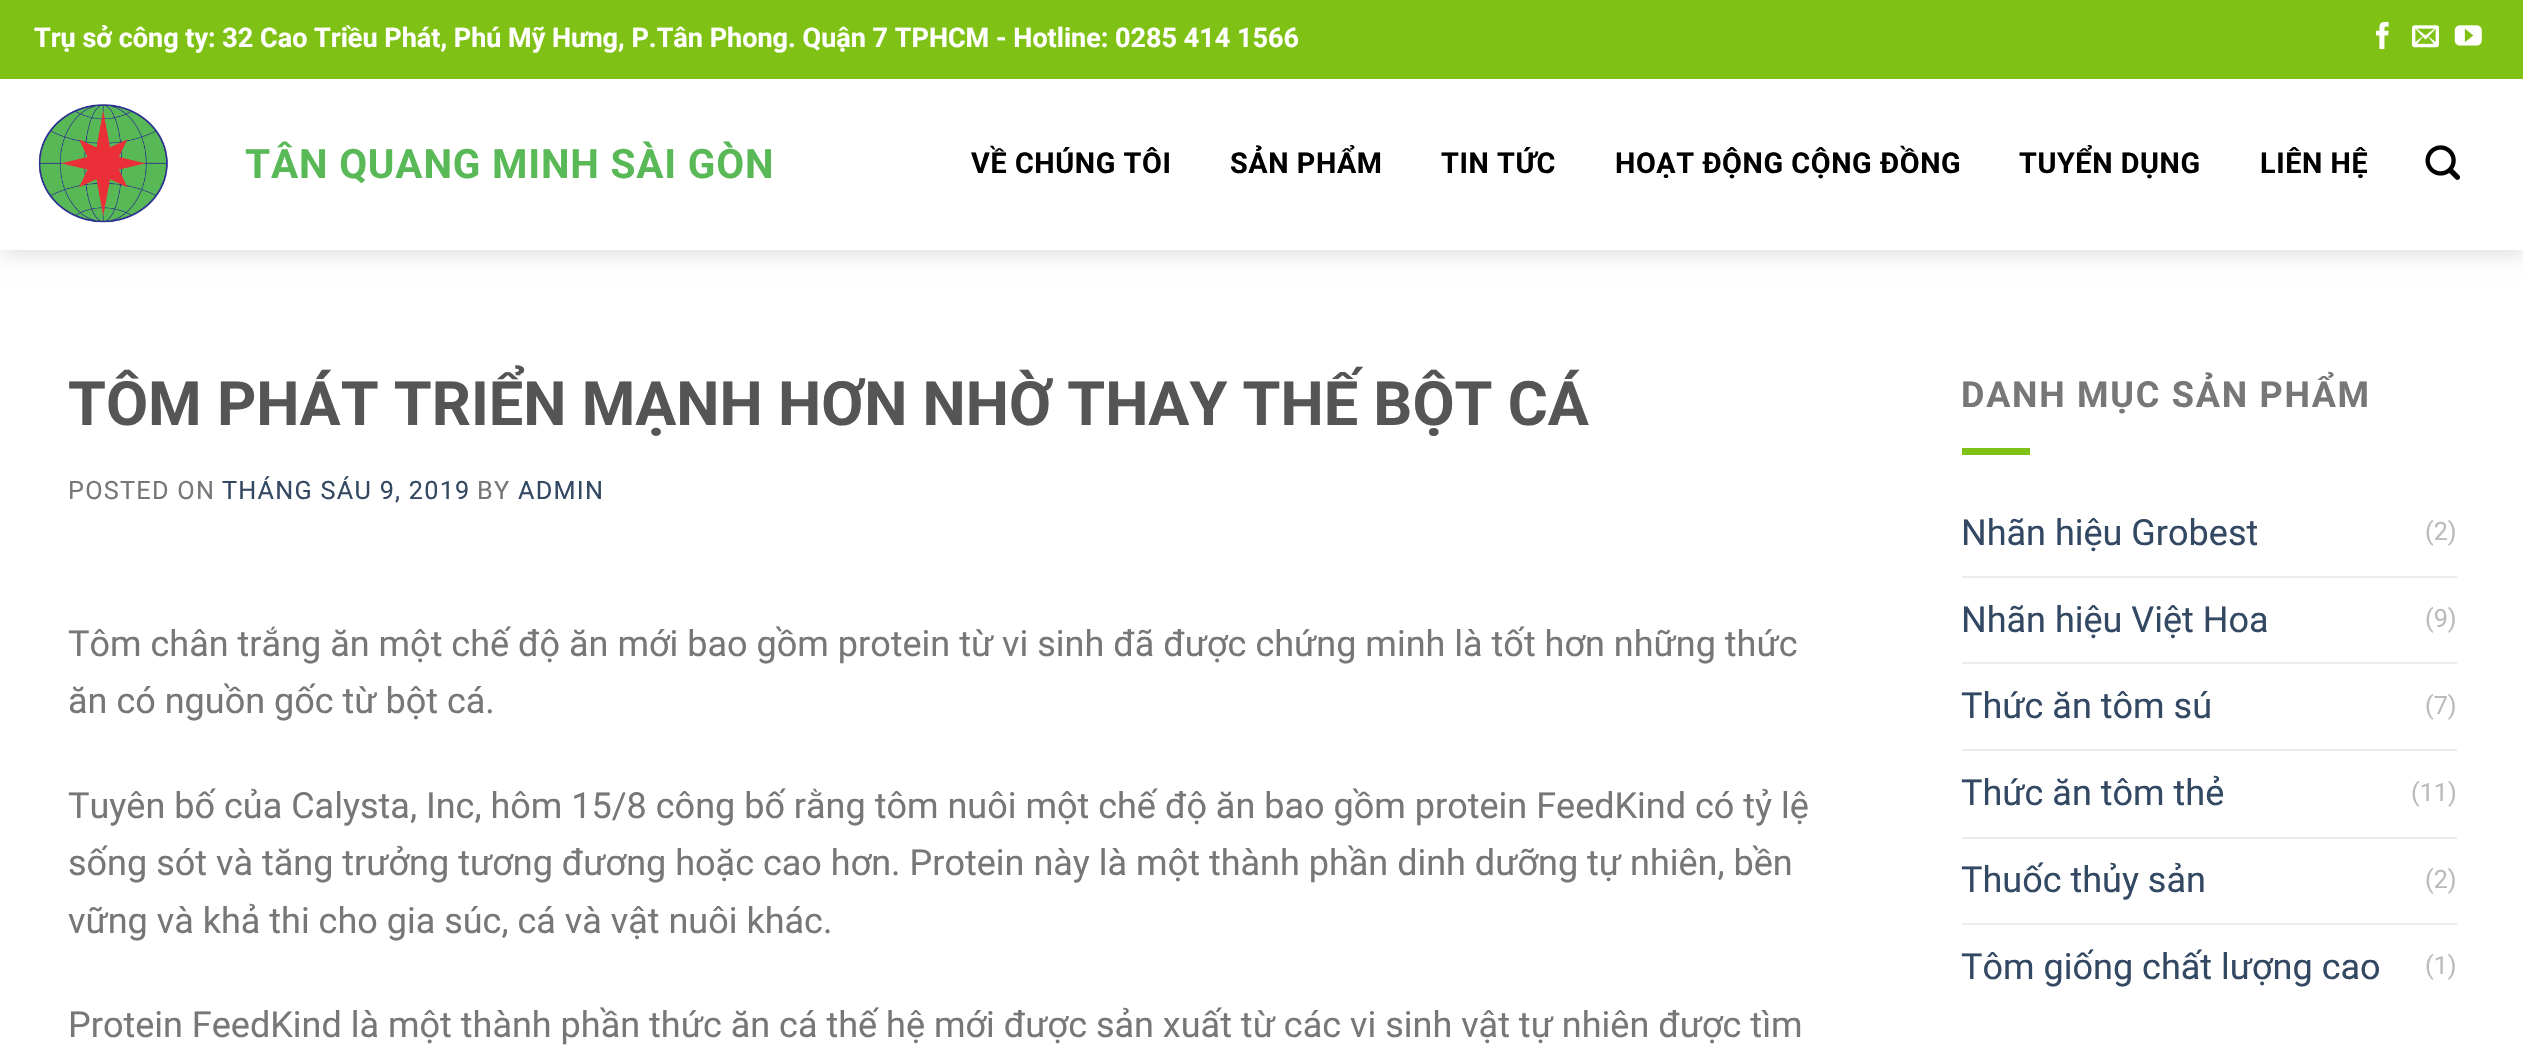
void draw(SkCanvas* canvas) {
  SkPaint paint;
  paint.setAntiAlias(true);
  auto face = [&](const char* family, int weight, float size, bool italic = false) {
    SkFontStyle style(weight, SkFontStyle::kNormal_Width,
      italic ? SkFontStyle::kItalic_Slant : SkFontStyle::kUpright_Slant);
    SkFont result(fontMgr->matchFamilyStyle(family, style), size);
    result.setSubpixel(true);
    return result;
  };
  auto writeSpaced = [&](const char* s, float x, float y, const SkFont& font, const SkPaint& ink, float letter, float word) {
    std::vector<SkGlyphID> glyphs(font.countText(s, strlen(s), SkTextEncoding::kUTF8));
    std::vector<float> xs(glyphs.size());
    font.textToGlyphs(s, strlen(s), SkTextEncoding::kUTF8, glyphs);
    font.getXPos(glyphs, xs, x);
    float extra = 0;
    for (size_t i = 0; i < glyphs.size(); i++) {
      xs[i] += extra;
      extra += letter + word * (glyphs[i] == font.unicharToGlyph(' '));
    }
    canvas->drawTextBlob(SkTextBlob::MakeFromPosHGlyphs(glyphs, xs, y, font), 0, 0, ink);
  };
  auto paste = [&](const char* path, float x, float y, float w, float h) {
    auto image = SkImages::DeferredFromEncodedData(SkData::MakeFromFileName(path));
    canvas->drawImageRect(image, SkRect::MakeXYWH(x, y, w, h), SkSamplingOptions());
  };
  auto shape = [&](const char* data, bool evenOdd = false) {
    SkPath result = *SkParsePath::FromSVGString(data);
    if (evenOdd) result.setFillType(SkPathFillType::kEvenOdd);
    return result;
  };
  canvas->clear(0xffffffff);
  canvas->save();
  canvas->clipPath(shape("M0 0H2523V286H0ZM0 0H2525V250H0Z", true), true);
  paint.setColor(0x26000000);
  paint.setMaskFilter(SkMaskFilter::MakeBlur(kNormal_SkBlurStyle, 11));
  canvas->drawRect(SkRect::MakeXYWH(2, 2, 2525, 250), paint);
  paint.setMaskFilter(nullptr);
  canvas->restore();
  paint.setColor(0xff7fc115);
  canvas->drawRect(SkRect::MakeXYWH(0, 0, 2523, 79), paint);
  paste("img/1.png", 2376, 21, 13, 28);
  paste("img/2.png", 2412, 25, 27, 23);
  paste("img/3.png", 2454, 25, 28, 21);
  paste("img/4.png", 38, 104, 130, 119);
  paste("img/5.png", 2425, 145, 35, 35);
  {
    const struct { float x, y, w, h; SkColor color; } items[] = {
      {2, 249, 2521, 1, 0xe6ffffff},
      {1962, 448, 68, 7, 0xff7fc115},
      {1962, 576, 495, 2, 0xffececec},
      {1962, 662, 495, 2, 0xffececec},
      {1962, 749, 495, 2, 0xffececec},
      {1962, 837, 495, 2, 0xffececec},
      {1962, 923, 495, 2, 0xffececec},
    };
    for (auto [x, y, w, h, color] : items) {
      paint.setColor(color);
      canvas->drawRect(SkRect::MakeXYWH(x, y, w, h), paint);
    }
  }
  auto f0 = face("Roboto", 700, 27);
  paint.setColor(0xffffffff);
  canvas->drawString("Trụ sở công ty: 32 Cao Triều Phát, Phú Mỹ Hưng, P.Tân Phong. Quận 7 TPHCM - Hotline: 0285 414 1566", 34, 47, f0, paint);
  auto f1 = face("Roboto", 700, 40.5f);
  paint.setColor(0xff59b957);
  writeSpaced("TÂN QUANG MINH SÀI GÒN", 245, 178, f1, paint, 0.8f, 0);
  auto f2 = face("Roboto", 700, 28.75f);
  paint.setColor(0xff000000);
  {
    const struct { const char* s; float x, y; } items[] = {
      {"VỀ CHÚNG TÔI", 971, 173},
      {"SẢN PHẨM", 1230, 173},
      {"TIN TỨC", 1441, 173},
      {"HOẠT ĐỘNG CỘNG ĐỒNG", 1615, 173},
      {"TUYỂN DỤNG", 2019, 173},
      {"LIÊN HỆ", 2260, 173},
    };
    for (auto [s, x, y] : items) {
      writeSpaced(s, x, y, f2, paint, 0.6f, 0);
    }
  }
  auto f3 = face("Roboto", 700, 61.2f);
  paint.setColor(0xff555555);
  canvas->drawString("TÔM PHÁT TRIỂN MẠNH HƠN NHỜ THAY THẾ BỘT CÁ", 68, 425, f3, paint);
  auto f4 = face("Roboto", 400, 25.25f);
  paint.setColor(0xff777777);
  writeSpaced("POSTED ON", 68, 499, f4, paint, 1.25f, 0);
  paint.setColor(0xff334862);
  writeSpaced("THÁNG SÁU 9, 2019", 222, 499, f4, paint, 1.25f, 0);
  paint.setColor(0xff777777);
  writeSpaced("BY", 477, 499, f4, paint, 1.25f, 0);
  paint.setColor(0xff334862);
  writeSpaced("ADMIN", 518, 499, f4, paint, 1.25f, 0);
  auto f5 = face("Roboto", 400, 36);
  paint.setColor(0xff777777);
  {
    const struct { const char* s; float x, y; } items[] = {
      {"Tôm chân trắng ăn một chế độ ăn mới bao gồm protein từ vi sinh đã được chứng minh là tốt hơn những thức", 68, 656},
      {"ăn có nguồn gốc từ bột cá.", 68, 713},
      {"Tuyên bố của Calysta, Inc, hôm 15/8 công bố rằng tôm nuôi một chế độ ăn bao gồm protein FeedKind có tỷ lệ", 68, 818},
      {"sống sót và tăng trưởng tương đương hoặc cao hơn. Protein này là một thành phần dinh dưỡng tự nhiên, bền", 68, 875},
      {"vững và khả thi cho gia súc, cá và vật nuôi khác.", 68, 933},
      {"Protein FeedKind là một thành phần thức ăn cá thế hệ mới được sản xuất từ các vi sinh vật tự nhiên được tìm", 68, 1037},
    };
    for (auto [s, x, y] : items) {
      canvas->drawString(s, x, y, f5, paint);
    }
  }
  auto f6 = face("Roboto", 700, 36);
  writeSpaced("DANH MỤC SẢN PHẨM", 1961, 407, f6, paint, 1.75f, 0);
  paint.setColor(0xff334862);
  canvas->drawString("Nhãn hiệu Grobest", 1961, 545, f5, paint);
  paint.setColor(0xffbbbbbb);
  canvas->drawString("(2)", 2425, 540, f4, paint);
  paint.setColor(0xff334862);
  canvas->drawString("Nhãn hiệu Việt Hoa", 1961, 632, f5, paint);
  paint.setColor(0xffbbbbbb);
  canvas->drawString("(9)", 2425, 627, f4, paint);
  paint.setColor(0xff334862);
  canvas->drawString("Thức ăn tôm sú", 1961, 718, f5, paint);
  paint.setColor(0xffbbbbbb);
  canvas->drawString("(7)", 2425, 714, f4, paint);
  paint.setColor(0xff334862);
  canvas->drawString("Thức ăn tôm thẻ", 1961, 805, f5, paint);
  paint.setColor(0xffbbbbbb);
  canvas->drawString("(11)", 2411, 801, f4, paint);
  paint.setColor(0xff334862);
  canvas->drawString("Thuốc thủy sản", 1961, 892, f5, paint);
  paint.setColor(0xffbbbbbb);
  canvas->drawString("(2)", 2425, 888, f4, paint);
  paint.setColor(0xff334862);
  canvas->drawString("Tôm giống chất lượng cao", 1961, 979, f5, paint);
  paint.setColor(0xffbbbbbb);
  canvas->drawString("(1)", 2425, 974, f4, paint);
}
